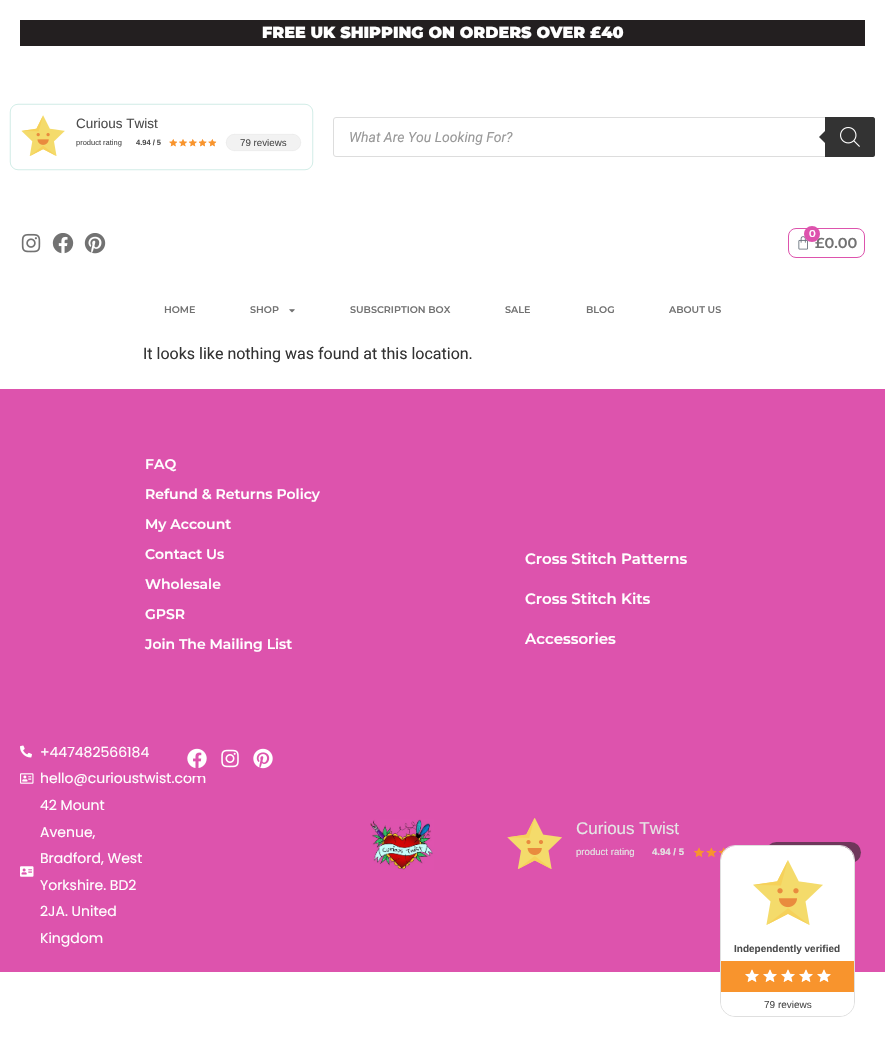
void draw(SkCanvas* canvas) {
  SkPaint paint;
  paint.setAntiAlias(true);
  auto face = [&](const char* family, int weight, float size, bool italic = false) {
    SkFontStyle style(weight, SkFontStyle::kNormal_Width,
      italic ? SkFontStyle::kItalic_Slant : SkFontStyle::kUpright_Slant);
    SkFont result(fontMgr->matchFamilyStyle(family, style), size);
    result.setSubpixel(true);
    return result;
  };
  auto paste = [&](const char* path, float x, float y, float w, float h) {
    auto image = SkImages::DeferredFromEncodedData(SkData::MakeFromFileName(path));
    canvas->drawImageRect(image, SkRect::MakeXYWH(x, y, w, h), SkSamplingOptions());
  };
  auto shape = [&](const char* data, bool evenOdd = false) {
    SkPath result = *SkParsePath::FromSVGString(data);
    if (evenOdd) result.setFillType(SkPathFillType::kEvenOdd);
    return result;
  };
  canvas->clear(0xffffffff);
  paint.setColor(0xff231f20);
  canvas->drawRect(SkRect::MakeXYWH(20, 20, 845, 26), paint);
  paint.setStroke(true);
  paint.setStrokeWidth(0.5f);
  paint.setColor(0xffa3d8cd);
  canvas->drawRoundRect(SkRect::MakeXYWH(10.25f, 104.25f, 302.5f, 65.5f), 7.75f, 7.75f, paint);
  paste("img/1.png", 21, 115, 44, 41);
  paste("img/2.png", 169, 139, 8, 8);
  paste("img/3.png", 169, 139, 8, 8);
  paste("img/4.png", 179, 139, 8, 8);
  paste("img/5.png", 179, 139, 8, 8);
  paste("img/6.png", 189, 139, 8, 8);
  paste("img/7.png", 189, 139, 8, 8);
  paste("img/8.png", 199, 139, 8, 8);
  paste("img/9.png", 199, 139, 8, 8);
  paste("img/10.png", 208, 139, 9, 8);
  paste("img/11.png", 208, 139, 8, 8);
  paint.setStroke(false);
  paint.setColor(0xfff2f2f2);
  canvas->drawRoundRect(SkRect::MakeXYWH(226, 134, 75, 17), 8.5f, 8.5f, paint);
  paint.setStroke(true);
  paint.setColor(0x99dfdfdf);
  canvas->drawRoundRect(SkRect::MakeXYWH(226.25f, 134.25f, 74.5f, 16.5f), 8.25f, 8.25f, paint);
  paint.setStrokeWidth(1);
  paint.setColor(0xffdddddd);
  canvas->drawRoundRect(SkRect::MakeXYWH(333.5f, 117.5f, 541, 39), 2.5f, 2.5f, paint);
  paint.setStroke(false);
  paint.setColor(0xff333333);
  canvas->drawPath(shape("M825 117H873C874 117 875 118 875 119V155C875 156 874 157 873 157H825Z"), paint);
  canvas->drawPath(shape("M827 129V145L819 137Z"), paint);
  paste("img/12.png", 840, 127, 20, 20);
  paste("img/13.png", 21, 233, 20, 20);
  paste("img/14.png", 52, 233, 22, 21);
  paste("img/15.png", 84, 233, 22, 21);
  paint.setStroke(true);
  paint.setColor(0xffdd53ad);
  canvas->drawRoundRect(SkRect::MakeXYWH(788.5f, 228.5f, 76, 29), 7.5f, 7.5f, paint);
  paste("img/16.png", 798, 236, 10, 14);
  paste("img/17.png", 289, 309, 6, 4);
  paint.setStroke(false);
  canvas->drawRect(SkRect::MakeXYWH(0, 389, 885, 583), paint);
  paste("img/18.png", 20, 745, 12, 13);
  paste("img/19.png", 20, 773, 14, 11);
  paste("img/20.png", 20, 866, 14, 11);
  paste("img/21.png", 187, 748, 20, 20);
  paste("img/22.png", 221, 749, 18, 19);
  paste("img/23.png", 253, 748, 20, 21);
  paste("img/24.png", 370, 819, 64, 51);
  paste("img/25.png", 507, 818, 55, 51);
  paste("img/26.png", 694, 847, 10, 10);
  paste("img/27.png", 694, 847, 10, 10);
  paste("img/28.png", 706, 847, 11, 10);
  paste("img/29.png", 706, 847, 11, 10);
  paste("img/30.png", 719, 847, 7, 10);
  paste("img/31.png", 719, 847, 7, 10);
  paint.setColor(0xff6e375b);
  canvas->drawRoundRect(SkRect::MakeXYWH(766, 842, 95, 21), 10.5f, 10.5f, paint);
  paint.setStroke(true);
  paint.setColor(0xffdfdfdf);
  canvas->drawRoundRect(SkRect::MakeXYWH(720.5f, 845.5f, 134, 171), 14.5f, 14.5f, paint);
  paint.setStroke(false);
  paint.setColor(0xffffffff);
  canvas->drawPath(shape("M735 846H840C847.5 846 854 852.5 854 860V961H721V860C721 852.5 727.5 846 735 846Z"), paint);
  paint.setColor(0xfff8942d);
  canvas->drawRect(SkRect::MakeXYWH(721, 961, 133, 31), paint);
  paint.setColor(0xffffffff);
  canvas->drawPath(shape("M721 992H854V1002C854 1009.5 847.5 1016 840 1016H735C727.5 1016 721 1009.5 721 1002Z"), paint);
  paste("img/32.png", 753, 860, 70, 65);
  paste("img/33.png", 745, 969, 14, 13);
  paste("img/34.png", 745, 969, 14, 13);
  paste("img/33.png", 763, 969, 14, 13);
  paste("img/34.png", 763, 969, 14, 13);
  paste("img/33.png", 781, 969, 14, 13);
  paste("img/34.png", 781, 969, 14, 13);
  paste("img/33.png", 799, 969, 14, 13);
  paste("img/34.png", 799, 969, 14, 13);
  paste("img/33.png", 817, 969, 14, 13);
  paste("img/35.png", 817, 969, 13, 13);
  auto f0 = face("Montserrat", 900, 16);
  canvas->drawString("FREE UK SHIPPING ON ORDERS OVER £40", 262, 38, f0, paint);
  auto f1 = face("Liberation Sans", 400, 13.5f);
  paint.setColor(0xff4d4d4d);
  canvas->drawString("Curious Twist", 76, 128, f1, paint);
  auto f2 = face("Liberation Sans", 400, 7.5f);
  canvas->drawString("product rating", 76, 145, f2, paint);
  auto f3 = face("Liberation Sans", 700, 7.5f);
  canvas->drawString("4.94 / 5", 136, 145, f3, paint);
  auto f4 = face("Liberation Sans", 400, 9.75f);
  canvas->drawString("79 reviews", 240, 146, f4, paint);
  auto f5 = face("Roboto", 400, 14, true);
  paint.setColor(0xff999999);
  canvas->drawString("What Are You Looking For?", 349, 142, f5, paint);
  auto f6 = face("Montserrat", 600, 14.5f);
  paint.setColor(0xff727272);
  canvas->drawString("£0.00", 815, 248, f6, paint);
  paint.setColor(0xffdd53ad);
  canvas->drawCircle(812, 234, 8, paint);
  auto f7 = face("Montserrat", 600, 10);
  paint.setColor(0xffffffff);
  canvas->drawString("0", 809, 237, f7, paint);
  auto f8 = face("Montserrat", 600, 9.6f);
  paint.setColor(0xff727272);
  {
    const struct { const char* s; float x, y; } items[] = {
      {"HOME", 164, 313},
      {"SHOP", 250, 313},
      {"SUBSCRIPTION BOX", 350, 313},
      {"SALE", 505, 313},
      {"BLOG", 586, 313},
      {"ABOUT US", 669, 313},
    };
    for (auto [s, x, y] : items) {
      canvas->drawString(s, x, y, f8, paint);
    }
  }
  auto f9 = face("Roboto", 400, 16);
  paint.setColor(0xff333333);
  canvas->drawString("It looks like nothing was found at this location.", 143, 359, f9, paint);
  auto f10 = face("Montserrat", 600, 14);
  paint.setColor(0xffffffff);
  {
    const struct { const char* s; float x, y; } items[] = {
      {"FAQ", 145, 469},
      {"Refund & Returns Policy", 145, 499},
      {"My Account", 145, 529},
      {"Contact Us", 145, 559},
      {"Wholesale", 145, 589},
      {"GPSR", 145, 619},
      {"Join The Mailing List", 145, 649},
    };
    for (auto [s, x, y] : items) {
      canvas->drawString(s, x, y, f10, paint);
    }
  }
  auto f11 = face("Montserrat", 600, 15);
  {
    const struct { const char* s; float x, y; } items[] = {
      {"Cross Stitch Patterns", 525, 564},
      {"Cross Stitch Kits", 525, 604},
      {"Accessories", 525, 644},
    };
    for (auto [s, x, y] : items) {
      canvas->drawString(s, x, y, f11, paint);
    }
  }
  auto f12 = face("Poppins", 400, 14);
  {
    const struct { const char* s; float x, y; } items[] = {
      {"+447482566184", 40, 757},
      {"hello@curioustwist.com", 40, 783},
      {"42 Mount", 40, 810},
      {"Avenue,", 40, 837},
      {"Bradford, West", 40, 863},
      {"Yorkshire. BD2", 40, 890},
      {"2JA. United", 40, 916},
      {"Kingdom", 40, 943},
    };
    for (auto [s, x, y] : items) {
      canvas->drawString(s, x, y, f12, paint);
    }
  }
  paint.setColor(0xffdd53ad);
  canvas->drawRect(SkRect::MakeXYWH(187, 775, 18, 1), paint);
  auto f13 = face("Liberation Sans", 400, 17);
  paint.setColor(0xffe5e5e5);
  canvas->drawString("Curious Twist", 576, 834, f13, paint);
  auto f14 = face("Liberation Sans", 400, 9.6f);
  canvas->drawString("product rating", 576, 855, f14, paint);
  auto f15 = face("Liberation Sans", 700, 9.6f);
  canvas->drawString("4.94 / 5", 652, 855, f15, paint);
  auto f16 = face("Liberation Sans", 700, 10);
  paint.setColor(0xff4d4d4d);
  canvas->drawString("Independently verified", 734, 952, f16, paint);
  auto f17 = face("Liberation Sans", 400, 10);
  canvas->drawString("79 reviews", 764, 1008, f17, paint);
}
